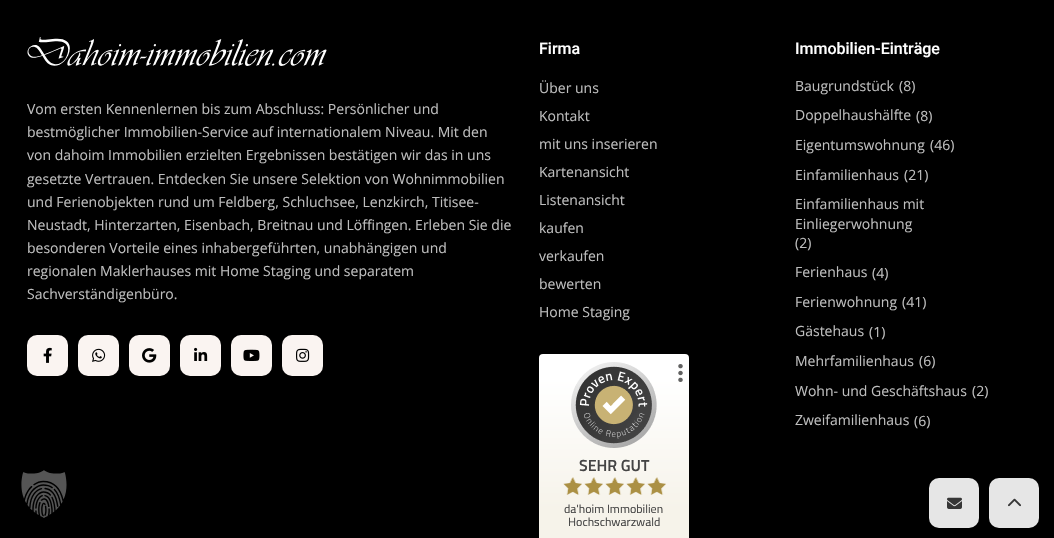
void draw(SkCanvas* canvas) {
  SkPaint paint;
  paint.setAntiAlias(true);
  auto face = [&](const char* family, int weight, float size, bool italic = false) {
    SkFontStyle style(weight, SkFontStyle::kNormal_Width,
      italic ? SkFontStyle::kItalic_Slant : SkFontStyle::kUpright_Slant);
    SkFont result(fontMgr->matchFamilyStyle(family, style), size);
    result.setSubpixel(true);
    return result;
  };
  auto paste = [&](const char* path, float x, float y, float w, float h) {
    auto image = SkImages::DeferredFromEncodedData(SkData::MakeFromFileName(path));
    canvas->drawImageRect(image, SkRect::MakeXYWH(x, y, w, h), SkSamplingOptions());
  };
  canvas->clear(0xff000000);
  paste("img/1.png", 27, 37, 300, 29);
  paint.setColor(0xfffaf4f1);
  canvas->drawRoundRect(SkRect::MakeXYWH(27, 335, 41, 41), 10, 10, paint);
  paste("img/2.png", 43, 347, 9, 16);
  canvas->drawRoundRect(SkRect::MakeXYWH(78, 335, 41, 41), 10, 10, paint);
  paste("img/3.png", 92, 348, 14, 14);
  canvas->drawRoundRect(SkRect::MakeXYWH(129, 335, 41, 41), 10, 10, paint);
  paste("img/4.png", 142, 348, 15, 15);
  canvas->drawRoundRect(SkRect::MakeXYWH(180, 335, 41, 41), 10, 10, paint);
  paste("img/5.png", 194, 347, 14, 14);
  canvas->drawRoundRect(SkRect::MakeXYWH(231, 335, 41, 41), 10, 10, paint);
  paste("img/6.png", 243, 349, 17, 12);
  canvas->drawRoundRect(SkRect::MakeXYWH(282, 335, 41, 41), 10, 10, paint);
  paste("img/7.png", 296, 348, 14, 14);
  {
    const SkColor colors[] = {0xfff6f3ea, 0xffffffff};
    const float stops[] = {0.37f, 0.9f};
    const SkPoint ends[] = {{614, 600}, {614, 354}};
    paint.setShader(SkGradientShader::MakeLinear(ends, colors, stops, 2, SkTileMode::kClamp));
    paint.setAlpha(255);
  }
  canvas->drawRoundRect(SkRect::MakeXYWH(539, 354, 150, 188), 4, 4, paint);
  paste("img/8.png", 571, 362, 86, 86);
  paste("img/9.png", 678, 364, 5, 18);
  paste("img/10.png", 563, 477, 19, 18);
  paste("img/10.png", 584, 477, 19, 18);
  paste("img/11.png", 605, 477, 19, 18);
  paste("img/11.png", 626, 477, 19, 18);
  paste("img/11.png", 647, 477, 19, 18);
  paste("img/12.png", 21, 470, 46, 48);
  paint.setShader(nullptr);
  paint.setColor(0xffe6e6e6);
  canvas->drawRoundRect(SkRect::MakeXYWH(929, 478, 50, 50), 10, 10, paint);
  paste("img/13.png", 947, 497, 15, 12);
  canvas->drawRoundRect(SkRect::MakeXYWH(989, 478, 50, 50), 10, 10, paint);
  paste("img/14.png", 1008, 498, 13, 9);
  auto f0 = face("Open Sans", 400, 14);
  paint.setColor(0xffbebebe);
  {
    const struct { const char* s; float x, y; } items[] = {
      {"Vom ersten Kennenlernen bis zum Abschluss: Persönlicher und", 27, 114},
      {"bestmöglicher Immobilien-Service auf internationalem Niveau. Mit den", 27, 137},
      {"von dahoim Immobilien erzielten Ergebnissen bestätigen wir das in uns", 27, 160},
      {"gesetzte Vertrauen. Entdecken Sie unsere Selektion von Wohnimmobilien", 27, 184},
      {"und Ferienobjekten rund um Feldberg, Schluchsee, Lenzkirch, Titisee-", 27, 207},
      {"Neustadt, Hinterzarten, Eisenbach, Breitnau und Löffingen. Erleben Sie die", 27, 230},
      {"besonderen Vorteile eines inhabergeführten, unabhängigen und", 27, 253},
      {"regionalen Maklerhauses mit Home Staging und separatem", 27, 276},
      {"Sachverständigenbüro.", 27, 299},
    };
    for (auto [s, x, y] : items) {
      canvas->drawString(s, x, y, f0, paint);
    }
  }
  auto f1 = face("Roboto", 500, 16);
  paint.setColor(0xffffffff);
  canvas->drawString("Firma", 539, 54, f1, paint);
  paint.setColor(0xffbebebe);
  {
    const struct { const char* s; float x, y; } items[] = {
      {"Über uns", 539, 93},
      {"Kontakt", 539, 121},
      {"mit uns inserieren", 539, 149},
      {"Kartenansicht", 539, 177},
      {"Listenansicht", 539, 205},
      {"kaufen", 539, 233},
      {"verkaufen", 539, 261},
      {"bewerten", 539, 289},
      {"Home Staging", 539, 317},
    };
    for (auto [s, x, y] : items) {
      canvas->drawString(s, x, y, f0, paint);
    }
  }
  auto f2 = face("Titillium Web", 600, 16);
  paint.setColor(0xff444444);
  canvas->drawString("SEHR GUT", 579, 471, f2, paint);
  auto f3 = face("Titillium Web", 400, 12);
  canvas->drawString("da'hoim Immobilien", 564, 513, f3, paint);
  canvas->drawString("Hochschwarzwald", 568, 526, f3, paint);
  paint.setColor(0xffffffff);
  canvas->drawString("Immobilien-Einträge", 795, 54, f1, paint);
  paint.setColor(0xffbebebe);
  {
    const struct { const char* s; float x, y; } items[] = {
      {"Baugrundstück", 795, 91},
      {"(8)", 899, 91},
      {"Doppelhaushälfte", 795, 120},
      {"(8)", 916, 121},
      {"Eigentumswohnung", 795, 150},
      {"(46)", 930, 150},
      {"Einfamilienhaus", 795, 180},
      {"(21)", 904, 180},
      {"Einfamilienhaus mit", 795, 209},
      {"Einliegerwohnung", 795, 229},
      {"(2)", 795, 248},
      {"Ferienhaus", 795, 277},
      {"(4)", 872, 278},
      {"Ferienwohnung", 795, 307},
      {"(41)", 902, 307},
      {"Gästehaus", 795, 336},
      {"(1)", 869, 337},
      {"Mehrfamilienhaus", 795, 366},
      {"(6)", 919, 366},
      {"Wohn- und Geschäftshaus", 795, 396},
      {"(2)", 972, 396},
      {"Zweifamilienhaus", 795, 425},
      {"(6)", 914, 426},
    };
    for (auto [s, x, y] : items) {
      canvas->drawString(s, x, y, f0, paint);
    }
  }
}
